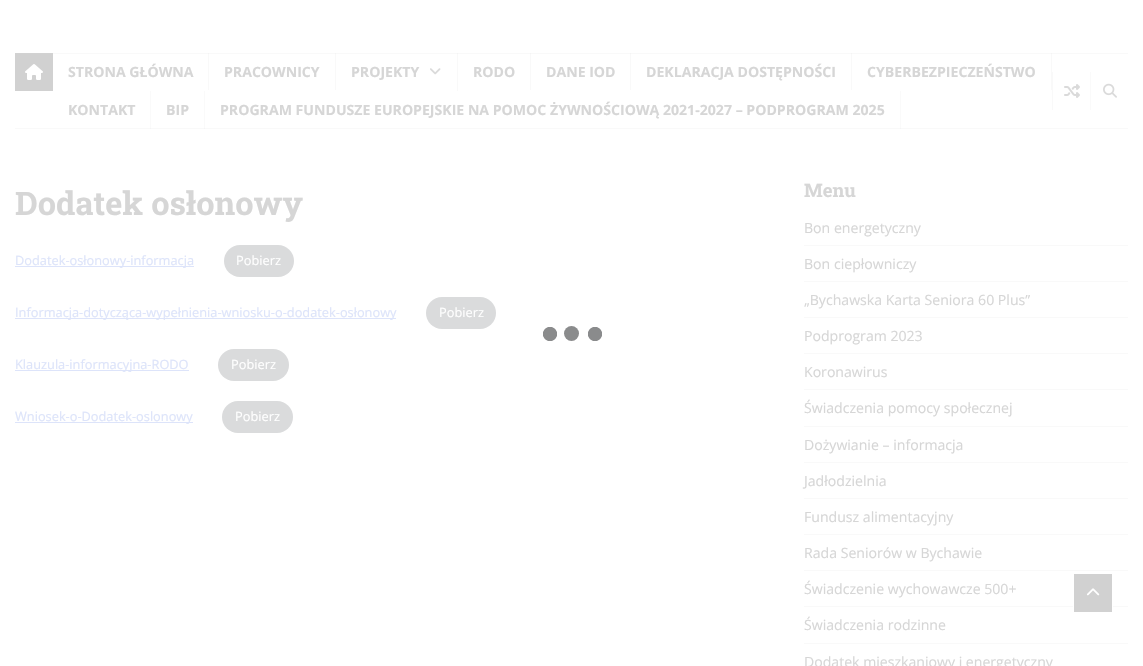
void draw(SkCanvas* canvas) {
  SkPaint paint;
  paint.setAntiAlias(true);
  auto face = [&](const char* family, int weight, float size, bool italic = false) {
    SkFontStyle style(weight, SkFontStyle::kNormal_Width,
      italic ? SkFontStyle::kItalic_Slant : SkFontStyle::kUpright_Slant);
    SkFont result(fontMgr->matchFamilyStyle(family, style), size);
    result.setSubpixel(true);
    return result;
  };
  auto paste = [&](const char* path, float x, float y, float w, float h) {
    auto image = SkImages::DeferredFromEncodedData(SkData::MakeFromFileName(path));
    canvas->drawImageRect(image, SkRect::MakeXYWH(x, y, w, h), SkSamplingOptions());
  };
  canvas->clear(0xffffffff);
  {
    const struct { float x, y, w, h; SkColor color; } items[] = {
      {15, 128, 1113, 1, 0xfff9f9f9},
      {1051, 53, 1, 37, 0xfff9f9f9},
      {851, 53, 1, 37, 0xfff9f9f9},
      {630, 53, 1, 37, 0xfff9f9f9},
      {530, 53, 1, 37, 0xfff9f9f9},
      {457, 53, 1, 38, 0xfff9f9f9},
      {335, 53, 1, 37, 0xfff9f9f9},
      {208, 53, 1, 37, 0xfff9f9f9},
      {53, 53, 1075, 1, 0xfff9f9f9},
      {1051, 53, 1, 1, 0xfff4f4f4},
      {851, 53, 1, 1, 0xfff4f4f4},
      {630, 53, 1, 1, 0xfff4f4f4},
      {530, 53, 1, 1, 0xfff4f4f4},
      {457, 53, 1, 1, 0xfff4f4f4},
      {335, 53, 1, 1, 0xfff4f4f4},
      {208, 53, 1, 1, 0xfff4f4f4},
      {15, 54, 38, 37, 0xffd1d1d1},
      {15, 53, 38, 1, 0xffd2d2d2},
    };
    for (auto [x, y, w, h, color] : items) {
      paint.setColor(color);
      canvas->drawRect(SkRect::MakeXYWH(x, y, w, h), paint);
    }
  }
  paste("img/1.png", 25, 64, 18, 16);
  paste("img/2.png", 430, 68, 11, 7);
  {
    const struct { float x, y, w, h; SkColor color; } items[] = {
      {150, 91, 1, 38, 0xfffafafa},
      {150, 128, 1, 1, 0xfff4f4f5},
      {204, 91, 1, 38, 0xfffafafa},
      {204, 128, 1, 1, 0xfff4f4f5},
      {900, 91, 1, 38, 0xfffafafa},
      {900, 128, 1, 1, 0xfff4f4f5},
      {1052, 72, 1, 38, 0xfff9f9f9},
    };
    for (auto [x, y, w, h, color] : items) {
      paint.setColor(color);
      canvas->drawRect(SkRect::MakeXYWH(x, y, w, h), paint);
    }
  }
  paste("img/3.png", 1064, 84, 16, 14);
  paint.setColor(0xfffafafa);
  canvas->drawRect(SkRect::MakeXYWH(1090, 72, 1, 38), paint);
  paste("img/4.png", 1103, 83, 14, 15);
  paint.setColor(0xffdde4fa);
  canvas->drawRect(SkRect::MakeXYWH(15, 266, 179, 1), paint);
  paint.setColor(0xffdadbdc);
  canvas->drawRoundRect(SkRect::MakeXYWH(224, 245, 70, 32), 16, 16, paint);
  paint.setColor(0xffdde4fa);
  canvas->drawRect(SkRect::MakeXYWH(15, 318, 381, 1), paint);
  paint.setColor(0xffdadbdc);
  canvas->drawRoundRect(SkRect::MakeXYWH(426, 297, 70, 32), 16, 16, paint);
  paint.setColor(0xffdde4fa);
  canvas->drawRect(SkRect::MakeXYWH(15, 370, 174, 1), paint);
  paint.setColor(0xffdadbdc);
  canvas->drawRoundRect(SkRect::MakeXYWH(218, 349, 71, 32), 16, 16, paint);
  paint.setColor(0xffdde4fa);
  canvas->drawRect(SkRect::MakeXYWH(15, 422, 178, 1), paint);
  paint.setColor(0xffdadbdc);
  canvas->drawRoundRect(SkRect::MakeXYWH(222, 401, 71, 32), 16, 16, paint);
  {
    const struct { float x, y, w, h; SkColor color; } items[] = {
      {804, 245, 324, 1, 0xfff9f9f9},
      {804, 281, 324, 1, 0xfff9f9f9},
      {804, 317, 324, 1, 0xfff9f9f9},
      {804, 353, 324, 1, 0xfff9f9f9},
      {804, 389, 324, 1, 0xfff9f9f9},
      {804, 426, 324, 1, 0xfff9f9f9},
      {804, 462, 324, 1, 0xfff9f9f9},
      {804, 498, 324, 1, 0xfff9f9f9},
      {804, 534, 324, 1, 0xfff9f9f9},
      {804, 570, 324, 1, 0xfff9f9f9},
      {804, 606, 324, 1, 0xfff9f9f9},
      {804, 643, 324, 1, 0xfff9f9f9},
    };
    for (auto [x, y, w, h, color] : items) {
      paint.setColor(color);
      canvas->drawRect(SkRect::MakeXYWH(x, y, w, h), paint);
    }
  }
  {
    const SkColor colors[] = {0xff8a8b8c, 0xffffffff};
    const float stops[] = {0.9f, 1};
    paint.setShader(SkGradientShader::MakeRadial({595, 334}, 7.5f, colors, stops, 2, SkTileMode::kClamp));
    paint.setAlpha(255);
  }
  canvas->drawRect(SkRect::MakeXYWH(588, 327, 14, 14), paint);
  {
    const SkColor colors[] = {0xff8a8b8c, 0xffffffff};
    const float stops[] = {0.9f, 1};
    paint.setShader(SkGradientShader::MakeRadial({550, 334}, 7.5f, colors, stops, 2, SkTileMode::kClamp));
    paint.setAlpha(255);
  }
  canvas->drawRect(SkRect::MakeXYWH(543, 327, 14, 14), paint);
  paint.setShader(nullptr);
  paint.setColor(0xff8a8b8c);
  canvas->drawCircle(571.5f, 333.5f, 7.5f, paint);
  paint.setColor(0xffd1d1d1);
  canvas->drawRect(SkRect::MakeXYWH(1073.5f, 573.5f, 39, 39), paint);
  paint.setStroke(true);
  paint.setStrokeWidth(1);
  paint.setColor(0xffffffff);
  canvas->drawRect(SkRect::MakeXYWH(1073.5f, 573.5f, 39, 39), paint);
  paste("img/5.png", 1086, 588, 14, 8);
  auto f0 = face("Open Sans", 700, 14.1f);
  paint.setStroke(false);
  paint.setColor(0xffd6d6d6);
  {
    const struct { const char* s; float x, y; } items[] = {
      {"STRONA GŁÓWNA", 68, 77},
      {"PRACOWNICY", 224, 77},
      {"PROJEKTY", 351, 77},
      {"RODO", 473, 77},
      {"DANE IOD", 546, 77},
      {"DEKLARACJA DOSTĘPNOŚCI", 646, 77},
      {"CYBERBEZPIECZEŃSTWO", 867, 77},
      {"KONTAKT", 68, 115},
      {"BIP", 166, 115},
      {"PROGRAM FUNDUSZE EUROPEJSKIE NA POMOC ŻYWNOŚCIOWĄ 2021-2027 – PODPROGRAM 2025", 220, 115},
    };
    for (auto [s, x, y] : items) {
      canvas->drawString(s, x, y, f0, paint);
    }
  }
  auto f1 = face("Roboto Slab", 700, 32.5f);
  canvas->drawString("Dodatek osłonowy", 15, 215, f1, paint);
  auto f2 = face("Open Sans", 400, 12.8f);
  paint.setColor(0xffdde4fa);
  canvas->drawString("Dodatek-osłonowy-informacja", 15, 265, f2, paint);
  paint.setColor(0xffffffff);
  canvas->drawString("Pobierz", 236, 265, f2, paint);
  paint.setColor(0xffdde4fa);
  canvas->drawString("Informacja-dotycząca-wypełnienia-wniosku-o-dodatek-osłonowy", 15, 317, f2, paint);
  paint.setColor(0xffffffff);
  canvas->drawString("Pobierz", 439, 317, f2, paint);
  paint.setColor(0xffdde4fa);
  canvas->drawString("Klauzula-informacyjna-RODO", 15, 369, f2, paint);
  paint.setColor(0xffffffff);
  canvas->drawString("Pobierz", 231, 369, f2, paint);
  paint.setColor(0xffdde4fa);
  canvas->drawString("Wniosek-o-Dodatek-oslonowy", 15, 421, f2, paint);
  paint.setColor(0xffffffff);
  canvas->drawString("Pobierz", 235, 421, f2, paint);
  auto f3 = face("Roboto Slab", 700, 18.5f);
  paint.setColor(0xffd6d6d6);
  canvas->drawString("Menu", 804, 197, f3, paint);
  auto f4 = face("Open Sans", 400, 14.1f);
  {
    const struct { const char* s; float x, y; } items[] = {
      {"Bon energetyczny", 804, 233},
      {"Bon ciepłowniczy", 804, 269},
      {"„Bychawska Karta Seniora 60 Plus”", 804, 305},
      {"Podprogram 2023", 804, 341},
      {"Koronawirus", 804, 377},
      {"Świadczenia pomocy społecznej", 804, 413},
      {"Dożywianie – informacja", 804, 450},
      {"Jadłodzielnia", 804, 486},
      {"Fundusz alimentacyjny", 804, 522},
      {"Rada Seniorów w Bychawie", 804, 558},
      {"Świadczenie wychowawcze 500+", 804, 594},
      {"Świadczenia rodzinne", 804, 630},
      {"Dodatek mieszkaniowy i energetyczny", 804, 667},
    };
    for (auto [s, x, y] : items) {
      canvas->drawString(s, x, y, f4, paint);
    }
  }
}
